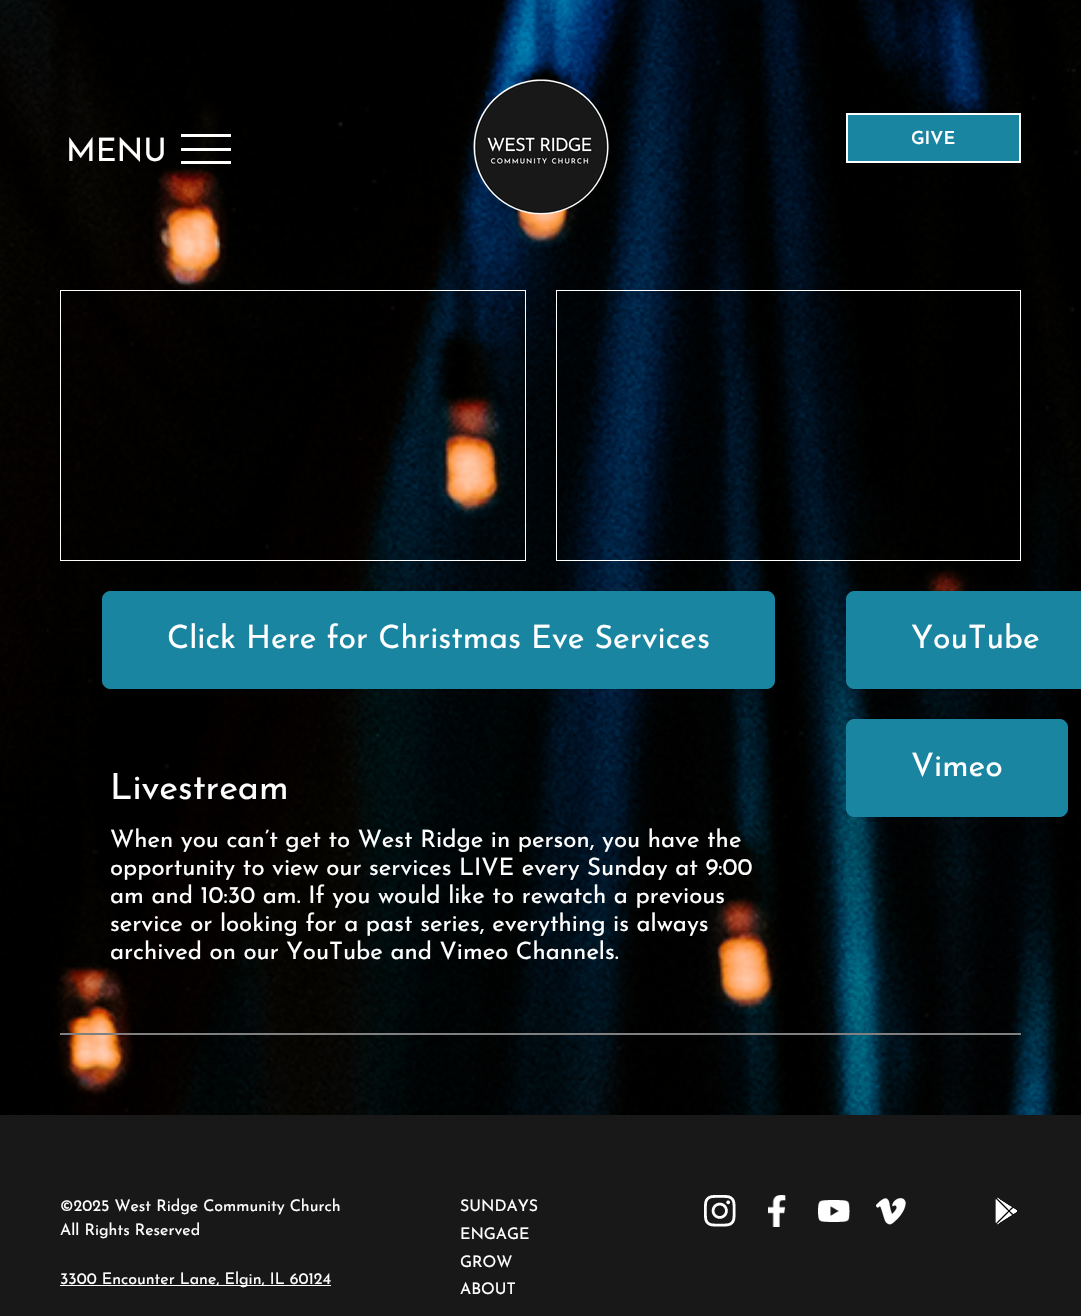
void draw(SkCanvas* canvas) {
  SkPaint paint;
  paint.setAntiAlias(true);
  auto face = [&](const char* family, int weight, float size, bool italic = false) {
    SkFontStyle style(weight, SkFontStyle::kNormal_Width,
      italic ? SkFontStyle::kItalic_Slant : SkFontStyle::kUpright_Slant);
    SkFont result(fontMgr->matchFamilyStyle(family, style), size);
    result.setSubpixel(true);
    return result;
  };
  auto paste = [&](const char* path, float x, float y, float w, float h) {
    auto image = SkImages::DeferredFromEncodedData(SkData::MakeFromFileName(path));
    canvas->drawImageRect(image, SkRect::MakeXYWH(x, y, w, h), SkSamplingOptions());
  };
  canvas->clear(0xffffffff);
  paste("img/1.png", 0, 0, 1081, 1115);
  {
    const struct { float x, y, w, h; SkColor color; } items[] = {
      {181, 134, 50, 3, 0xffffffff},
      {181, 148, 50, 3, 0xffffffff},
      {181, 161, 50, 3, 0xffffffff},
    };
    for (auto [x, y, w, h, color] : items) {
      paint.setColor(color);
      canvas->drawRect(SkRect::MakeXYWH(x, y, w, h), paint);
    }
  }
  paste("img/2.png", 473, 79, 136, 136);
  paint.setColor(0xff1985a1);
  canvas->drawRect(SkRect::MakeXYWH(847, 114, 173, 48), paint);
  paint.setStroke(true);
  paint.setStrokeWidth(2);
  paint.setColor(0xffffffff);
  canvas->drawRect(SkRect::MakeXYWH(847, 114, 173, 48), paint);
  paint.setStrokeWidth(1);
  paint.setColor(0xfffcfcfc);
  canvas->drawRect(SkRect::MakeXYWH(60.5f, 290.5f, 465, 270), paint);
  paint.setColor(0xffffffff);
  canvas->drawRect(SkRect::MakeXYWH(556.5f, 290.5f, 464, 270), paint);
  paint.setStroke(false);
  paint.setColor(0xff1985a1);
  canvas->drawRoundRect(SkRect::MakeXYWH(102.5f, 591.5f, 672, 97), 7.5f, 7.5f, paint);
  paint.setStroke(true);
  canvas->drawRoundRect(SkRect::MakeXYWH(102.5f, 591.5f, 672, 97), 7.5f, 7.5f, paint);
  paint.setStroke(false);
  canvas->drawRoundRect(SkRect::MakeXYWH(846.5f, 591.5f, 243, 97), 7.5f, 7.5f, paint);
  paint.setStroke(true);
  canvas->drawRoundRect(SkRect::MakeXYWH(846.5f, 591.5f, 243, 97), 7.5f, 7.5f, paint);
  paint.setStroke(false);
  canvas->drawRoundRect(SkRect::MakeXYWH(846.5f, 719.5f, 221, 97), 7.5f, 7.5f, paint);
  paint.setStroke(true);
  canvas->drawRoundRect(SkRect::MakeXYWH(846.5f, 719.5f, 221, 97), 7.5f, 7.5f, paint);
  paint.setStroke(false);
  {
    const struct { float x, y, w, h; SkColor color; } items[] = {
      {60, 1033, 961, 2, 0xff808080},
      {0, 1115, 1081, 201, 0xff181818},
      {60, 1285, 271, 1, 0xffffffff},
    };
    for (auto [x, y, w, h, color] : items) {
      paint.setColor(color);
      canvas->drawRect(SkRect::MakeXYWH(x, y, w, h), paint);
    }
  }
  paste("img/3.png", 704, 1195, 32, 32);
  paste("img/4.png", 768, 1195, 18, 32);
  paste("img/5.png", 818, 1200, 32, 22);
  paste("img/6.png", 876, 1198, 30, 27);
  paste("img/7.png", 995, 1197, 22, 28);
  auto f0 = face("Josefin Sans", 400, 32);
  canvas->drawString("MENU", 66, 161, f0, paint);
  auto f1 = face("Josefin Sans", 600, 18);
  canvas->drawString("GIVE", 911, 144, f1, paint);
  canvas->drawString("Click Here for Christmas Eve Services", 167, 648, f0, paint);
  auto f2 = face("Josefin Sans", 400, 36);
  canvas->drawString("Livestream", 110, 799, f2, paint);
  auto f3 = face("Josefin Sans", 400, 24);
  {
    const struct { const char* s; float x, y; } items[] = {
      {"When you can’t get to West Ridge in person, you have the", 110, 847},
      {"opportunity to view our services LIVE every Sunday at 9:00", 110, 875},
      {"am and 10:30 am. If you would like to rewatch a previous", 110, 903},
      {"service or looking for a past series, everything is always", 110, 931},
      {"archived on our YouTube and Vimeo Channels.", 110, 959},
    };
    for (auto [s, x, y] : items) {
      canvas->drawString(s, x, y, f3, paint);
    }
  }
  canvas->drawString("YouTube", 911, 648, f0, paint);
  canvas->drawString("Vimeo", 911, 776, f0, paint);
  auto f4 = face("Josefin Sans", 400, 16);
  {
    const struct { const char* s; float x, y; } items[] = {
      {"©2025 West Ridge Community Church", 60, 1211},
      {"All Rights Reserved", 60, 1235},
      {"3300 Encounter Lane, Elgin, IL 60124", 60, 1284},
      {"SUNDAYS", 460, 1211},
      {"ENGAGE", 460, 1239},
      {"GROW", 460, 1267},
      {"ABOUT", 460, 1294},
    };
    for (auto [s, x, y] : items) {
      canvas->drawString(s, x, y, f4, paint);
    }
  }
}
